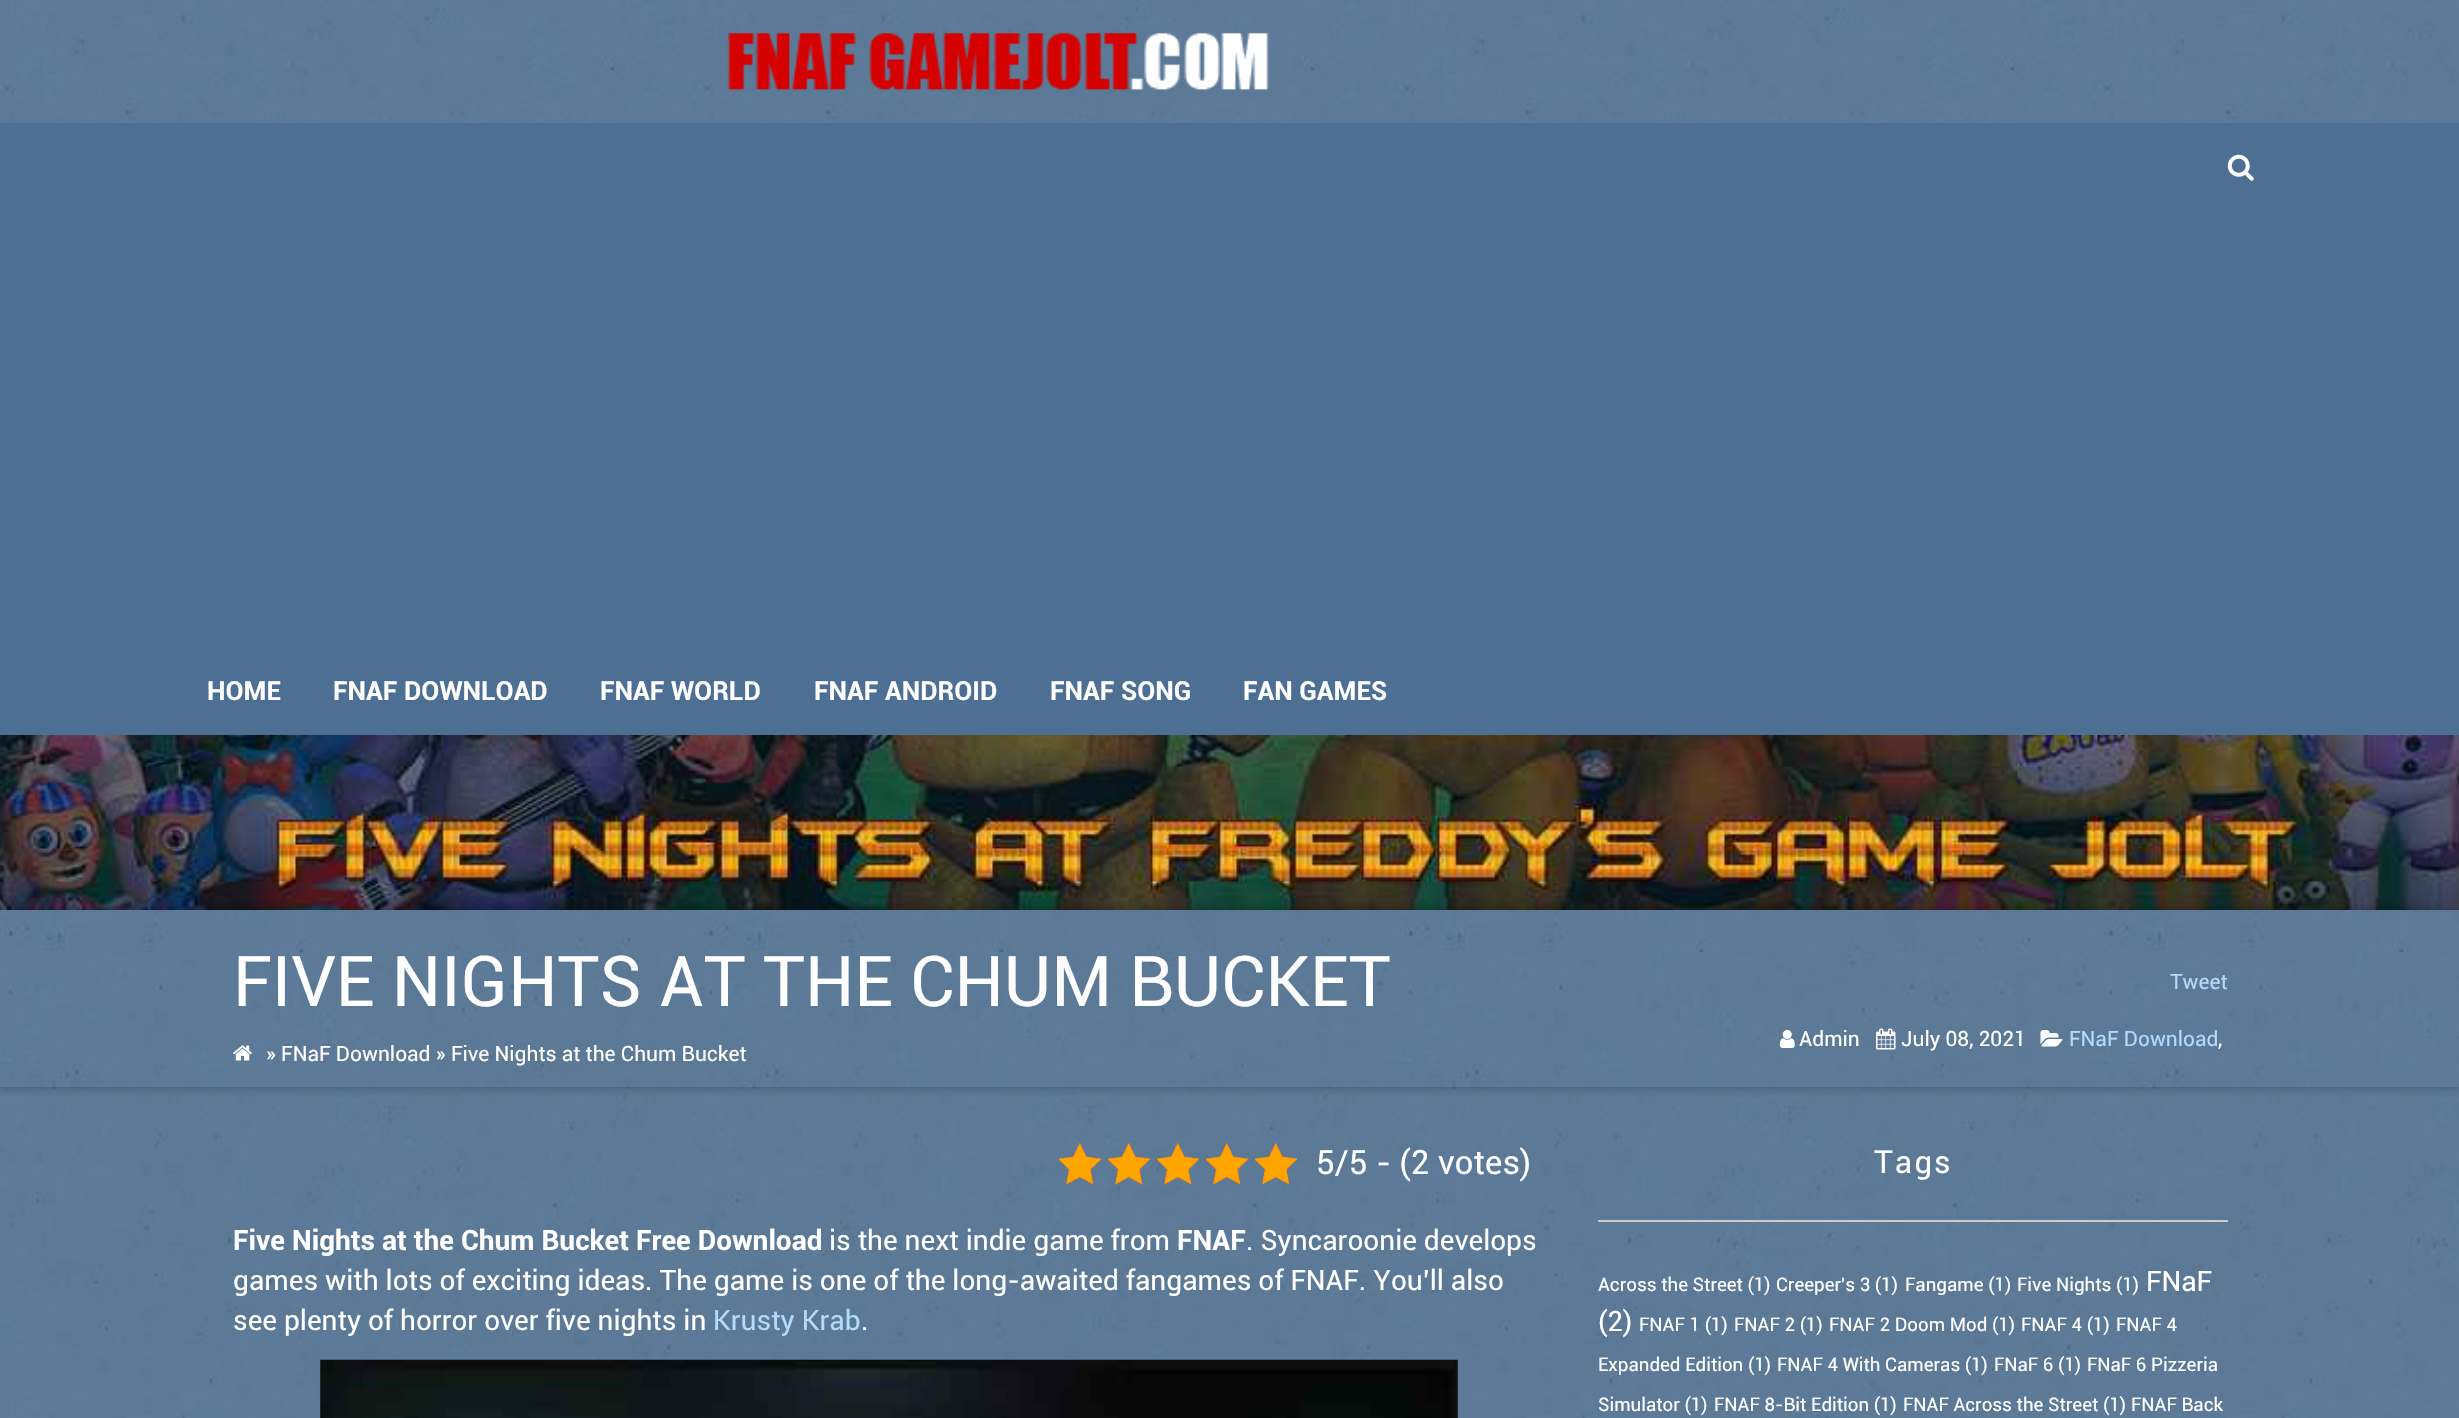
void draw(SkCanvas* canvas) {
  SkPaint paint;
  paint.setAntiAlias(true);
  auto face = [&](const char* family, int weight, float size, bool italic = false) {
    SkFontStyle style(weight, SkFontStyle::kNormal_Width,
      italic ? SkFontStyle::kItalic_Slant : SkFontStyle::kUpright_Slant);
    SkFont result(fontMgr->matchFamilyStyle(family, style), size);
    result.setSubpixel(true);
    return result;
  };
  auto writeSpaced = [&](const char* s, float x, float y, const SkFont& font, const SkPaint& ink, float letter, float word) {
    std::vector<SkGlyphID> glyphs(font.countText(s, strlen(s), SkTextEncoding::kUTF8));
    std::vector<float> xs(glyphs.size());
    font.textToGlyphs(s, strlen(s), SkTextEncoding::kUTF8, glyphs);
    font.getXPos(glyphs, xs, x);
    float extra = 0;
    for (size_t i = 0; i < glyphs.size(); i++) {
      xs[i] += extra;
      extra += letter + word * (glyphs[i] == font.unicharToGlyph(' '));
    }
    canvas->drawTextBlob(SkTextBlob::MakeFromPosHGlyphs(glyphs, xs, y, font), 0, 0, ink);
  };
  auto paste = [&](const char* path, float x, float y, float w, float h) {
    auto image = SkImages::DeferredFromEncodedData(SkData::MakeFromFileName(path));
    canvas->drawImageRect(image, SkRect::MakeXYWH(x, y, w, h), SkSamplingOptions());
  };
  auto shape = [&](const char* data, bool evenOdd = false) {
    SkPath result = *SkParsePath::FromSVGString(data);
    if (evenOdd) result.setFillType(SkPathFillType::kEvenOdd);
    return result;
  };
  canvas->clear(0xffffffff);
  paste("img/1.png", 0, 0, 2459, 1418);
  paste("img/2.png", 727, 32, 542, 58);
  paint.setColor(0xff4e6f94);
  canvas->drawRect(SkRect::MakeXYWH(0, 123, 2459, 612), paint);
  paste("img/3.png", 2227, 154, 27, 27);
  paste("img/4.png", 0, 735, 2459, 175);
  canvas->save();
  canvas->clipPath(shape("M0 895H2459V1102H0ZM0 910H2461V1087H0Z", true), true);
  paint.setColor(0x4f000000);
  paint.setMaskFilter(SkMaskFilter::MakeBlur(kNormal_SkBlurStyle, 4.5f));
  canvas->drawRect(SkRect::MakeXYWH(0, 910, 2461, 177), paint);
  paint.setMaskFilter(nullptr);
  canvas->restore();
  paste("img/5.png", 233, 1045, 19, 16);
  paste("img/6.png", 1779, 1030, 16, 18);
  paste("img/7.png", 1876, 1028, 20, 22);
  paste("img/8.png", 2040, 1030, 23, 17);
  paste("img/9.png", 1059, 1143, 42, 42);
  paste("img/10.png", 1108, 1143, 42, 42);
  paste("img/11.png", 1157, 1143, 42, 42);
  paste("img/12.png", 1206, 1143, 42, 42);
  paste("img/13.png", 1255, 1143, 42, 42);
  paste("img/14.png", 1059, 1143, 42, 42);
  paste("img/15.png", 1108, 1143, 42, 42);
  paste("img/16.png", 1157, 1143, 42, 42);
  paste("img/17.png", 1206, 1143, 42, 42);
  paste("img/18.png", 1255, 1143, 42, 42);
  paste("img/19.png", 320, 1359, 1138, 59);
  paint.setColor(0xffcccccc);
  canvas->drawRect(SkRect::MakeXYWH(1598, 1220, 630, 2), paint);
  auto f0 = face("Roboto", 700, 26.25f);
  paint.setColor(0xffffffff);
  {
    const struct { const char* s; float x, y; } items[] = {
      {"HOME", 207, 700},
      {"FNAF DOWNLOAD", 333, 700},
      {"FNAF WORLD", 600, 700},
      {"FNAF ANDROID", 814, 700},
      {"FNAF SONG", 1050, 700},
      {"FAN GAMES", 1243, 700},
    };
    for (auto [s, x, y] : items) {
      canvas->drawString(s, x, y, f0, paint);
    }
  }
  auto f1 = face("Roboto", 400, 70);
  canvas->drawString("FIVE NIGHTS AT THE CHUM BUCKET", 233, 1006, f1, paint);
  auto f2 = face("Roboto", 400, 21);
  canvas->drawString("» FNaF Download » Five Nights at the Chum Bucket", 266, 1061, f2, paint);
  paint.setColor(0xffb3daff);
  canvas->drawString("Tweet", 2170, 989, f2, paint);
  paint.setColor(0xffffffff);
  canvas->drawString("Admin", 1799, 1046, f2, paint);
  canvas->drawString("July 08, 2021", 1901, 1046, f2, paint);
  paint.setColor(0xffb3daff);
  canvas->drawString("FNaF Download", 2069, 1046, f2, paint);
  paint.setColor(0xffffffff);
  canvas->drawString(",", 2218, 1046, f2, paint);
  auto f3 = face("Roboto", 400, 33.5f);
  canvas->drawString("5/5 - (2 votes)", 1316, 1174, f3, paint);
  auto f4 = face("Roboto", 700, 28);
  canvas->drawString("Five Nights at the Chum Bucket Free Download", 233, 1250, f4, paint);
  auto f5 = face("Roboto", 400, 28);
  canvas->drawString("is the next indie game from", 829, 1250, f5, paint);
  canvas->drawString("FNAF", 1177, 1250, f4, paint);
  {
    const struct { const char* s; float x, y; } items[] = {
      {". Syncaroonie develops", 1246, 1250},
      {"games with lots of exciting ideas. The game is one of the long-awaited fangames of FNAF. You’ll also", 233, 1290},
      {"see plenty of horror over five nights in", 233, 1330},
    };
    for (auto [s, x, y] : items) {
      canvas->drawString(s, x, y, f5, paint);
    }
  }
  paint.setColor(0xffb3daff);
  canvas->drawString("Krusty Krab", 713, 1330, f5, paint);
  paint.setColor(0xffffffff);
  canvas->drawString(".", 861, 1330, f5, paint);
  auto f6 = face("Roboto", 400, 31.5f);
  writeSpaced("Tags", 1874, 1173, f6, paint, 2, 0);
  auto f7 = face("Roboto", 400, 18.75f);
  {
    const struct { const char* s; float x, y; } items[] = {
      {"Across the Street (1)", 1598, 1291},
      {"Creeper's 3 (1)", 1776, 1291},
      {"Fangame (1)", 1905, 1291},
      {"Five Nights (1)", 2017, 1291},
    };
    for (auto [s, x, y] : items) {
      canvas->drawString(s, x, y, f7, paint);
    }
  }
  canvas->drawString("FNaF", 2146, 1291, f5, paint);
  canvas->drawString("(2)", 1598, 1331, f5, paint);
  {
    const struct { const char* s; float x, y; } items[] = {
      {"FNAF 1 (1)", 1639, 1331},
      {"FNAF 2 (1)", 1734, 1331},
      {"FNAF 2 Doom Mod (1)", 1829, 1331},
      {"FNAF 4 (1)", 2021, 1331},
      {"FNAF 4", 2116, 1331},
      {"Expanded Edition (1)", 1598, 1371},
      {"FNAF 4 With Cameras (1)", 1777, 1371},
      {"FNaF 6 (1)", 1994, 1371},
      {"FNaF 6 Pizzeria", 2087, 1371},
      {"Simulator (1)", 1598, 1411},
      {"FNAF 8-Bit Edition (1)", 1714, 1411},
      {"FNAF Across the Street (1)", 1903, 1411},
      {"FNAF Back", 2131, 1411},
    };
    for (auto [s, x, y] : items) {
      canvas->drawString(s, x, y, f7, paint);
    }
  }
}
